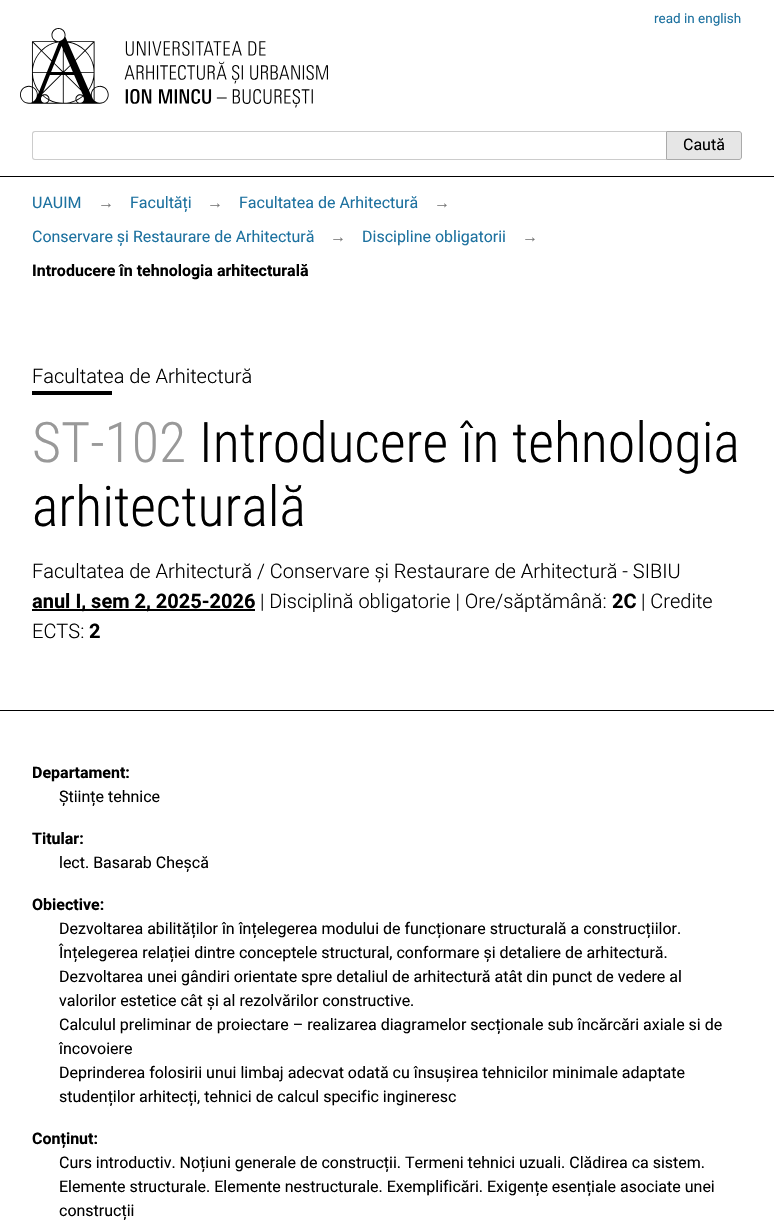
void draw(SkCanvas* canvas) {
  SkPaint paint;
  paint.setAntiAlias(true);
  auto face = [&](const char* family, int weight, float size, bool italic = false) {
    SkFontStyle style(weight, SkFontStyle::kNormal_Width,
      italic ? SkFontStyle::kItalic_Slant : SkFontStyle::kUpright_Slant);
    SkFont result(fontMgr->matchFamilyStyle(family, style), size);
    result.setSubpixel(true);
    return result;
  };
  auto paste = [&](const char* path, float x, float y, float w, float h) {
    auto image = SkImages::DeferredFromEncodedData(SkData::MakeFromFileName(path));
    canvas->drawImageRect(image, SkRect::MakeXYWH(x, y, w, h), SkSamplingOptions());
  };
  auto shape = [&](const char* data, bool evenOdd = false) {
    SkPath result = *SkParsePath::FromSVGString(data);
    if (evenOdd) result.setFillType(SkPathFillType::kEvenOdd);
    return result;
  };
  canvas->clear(0xffffffff);
  paste("img/1.png", 20, 28, 308, 80);
  paint.setColor(0xffcccccc);
  canvas->drawPath(shape("M35 131H666V160H35C33 160 32 159 32 157V134C32 132 33 131 35 131ZM35 132H666V159H35C34 159 33 158 33 157V134C33 133 34 132 35 132Z", true), paint);
  paint.setColor(0xffe6e6e6);
  canvas->drawPath(shape("M666.5 131.5H739C740.5 131.5 741.5 132.5 741.5 134V157C741.5 158.5 740.5 159.5 739 159.5H666.5Z"), paint);
  paint.setStroke(true);
  paint.setStrokeWidth(1);
  paint.setColor(0xffaaaaaa);
  canvas->drawPath(shape("M666.5 131.5H739C740.5 131.5 741.5 132.5 741.5 134V157C741.5 158.5 740.5 159.5 739 159.5H666.5Z"), paint);
  paint.setStroke(false);
  {
    const struct { float x, y, w, h; SkColor color; } items[] = {
      {0, 176, 774, 1, 0xff000000},
      {0, 710, 774, 1, 0xff000000},
      {32, 391, 80, 4, 0xff000000},
      {32, 609, 223, 2, 0xff000000},
    };
    for (auto [x, y, w, h, color] : items) {
      paint.setColor(color);
      canvas->drawRect(SkRect::MakeXYWH(x, y, w, h), paint);
    }
  }
  auto f0 = face("Roboto", 400, 13.5f);
  paint.setColor(0xff1e72a0);
  canvas->drawString("read in english", 654, 23, f0, paint);
  auto f1 = face("Roboto", 400, 16);
  paint.setColor(0xff000000);
  canvas->drawString("Caută", 683, 150, f1, paint);
  paint.setColor(0xff1e72a0);
  canvas->drawString("UAUIM", 32, 208, f1, paint);
  auto f2 = face("Liberation Sans", 400, 16);
  paint.setColor(0xff777777);
  canvas->drawString("→", 98, 208, f2, paint);
  paint.setColor(0xff1e72a0);
  canvas->drawString("Facultăți", 130, 208, f1, paint);
  paint.setColor(0xff777777);
  canvas->drawString("→", 207, 208, f2, paint);
  paint.setColor(0xff1e72a0);
  canvas->drawString("Facultatea de Arhitectură", 239, 208, f1, paint);
  paint.setColor(0xff777777);
  canvas->drawString("→", 434, 208, f2, paint);
  paint.setColor(0xff1e72a0);
  canvas->drawString("Conservare și Restaurare de Arhitectură", 32, 242, f1, paint);
  paint.setColor(0xff777777);
  canvas->drawString("→", 330, 242, f2, paint);
  paint.setColor(0xff1e72a0);
  canvas->drawString("Discipline obligatorii", 362, 242, f1, paint);
  paint.setColor(0xff777777);
  canvas->drawString("→", 522, 242, f2, paint);
  auto f3 = face("Roboto", 700, 16);
  paint.setColor(0xff000000);
  canvas->drawString("Introducere în tehnologia arhitecturală", 32, 276, f3, paint);
  auto f4 = face("Roboto", 300, 20);
  canvas->drawString("Facultatea de Arhitectură", 32, 383, f4, paint);
  auto f5 = face("Roboto Condensed", 300, 56);
  paint.setColor(0xff999999);
  canvas->drawString("ST-102", 32, 462, f5, paint);
  paint.setColor(0xff000000);
  canvas->drawString("Introducere în tehnologia", 199, 462, f5, paint);
  canvas->drawString("arhitecturală", 32, 526, f5, paint);
  canvas->drawString("Facultatea de Arhitectură / Conservare și Restaurare de Arhitectură - SIBIU", 32, 578, f4, paint);
  auto f6 = face("Roboto", 700, 20);
  canvas->drawString("anul I, sem 2, 2025-2026", 32, 608, f6, paint);
  canvas->drawString("| Disciplină obligatorie | Ore/săptămână:", 260, 608, f4, paint);
  canvas->drawString("2C", 612, 608, f6, paint);
  canvas->drawString("| Credite", 641, 608, f4, paint);
  canvas->drawString("ECTS:", 32, 638, f4, paint);
  canvas->drawString("2", 89, 638, f6, paint);
  canvas->drawString("Departament:", 32, 778, f3, paint);
  canvas->drawString("Științe tehnice", 59, 802, f1, paint);
  canvas->drawString("Titular:", 32, 844, f3, paint);
  canvas->drawString("lect. Basarab Cheșcă", 59, 868, f1, paint);
  canvas->drawString("Obiective:", 32, 910, f3, paint);
  {
    const struct { const char* s; float x, y; } items[] = {
      {"Dezvoltarea abilităților în înțelegerea modului de funcționare structurală a construcțiilor.", 59, 934},
      {"Înțelegerea relației dintre conceptele structural, conformare și detaliere de arhitectură.", 59, 958},
      {"Dezvoltarea unei gândiri orientate spre detaliul de arhitectură atât din punct de vedere al", 59, 982},
      {"valorilor estetice cât și al rezolvărilor constructive.", 59, 1006},
      {"Calculul preliminar de proiectare – realizarea diagramelor secționale sub încărcări axiale si de", 59, 1030},
      {"încovoiere", 59, 1054},
      {"Deprinderea folosirii unui limbaj adecvat odată cu însușirea tehnicilor minimale adaptate", 59, 1078},
      {"studenților arhitecți, tehnici de calcul specific ingineresc", 59, 1102},
    };
    for (auto [s, x, y] : items) {
      canvas->drawString(s, x, y, f1, paint);
    }
  }
  canvas->drawString("Conținut:", 32, 1144, f3, paint);
  {
    const struct { const char* s; float x, y; } items[] = {
      {"Curs introductiv. Noțiuni generale de construcții. Termeni tehnici uzuali. Clădirea ca sistem.", 59, 1168},
      {"Elemente structurale. Elemente nestructurale. Exemplificări. Exigențe esențiale asociate unei", 59, 1192},
      {"construcții", 59, 1216},
    };
    for (auto [s, x, y] : items) {
      canvas->drawString(s, x, y, f1, paint);
    }
  }
}
